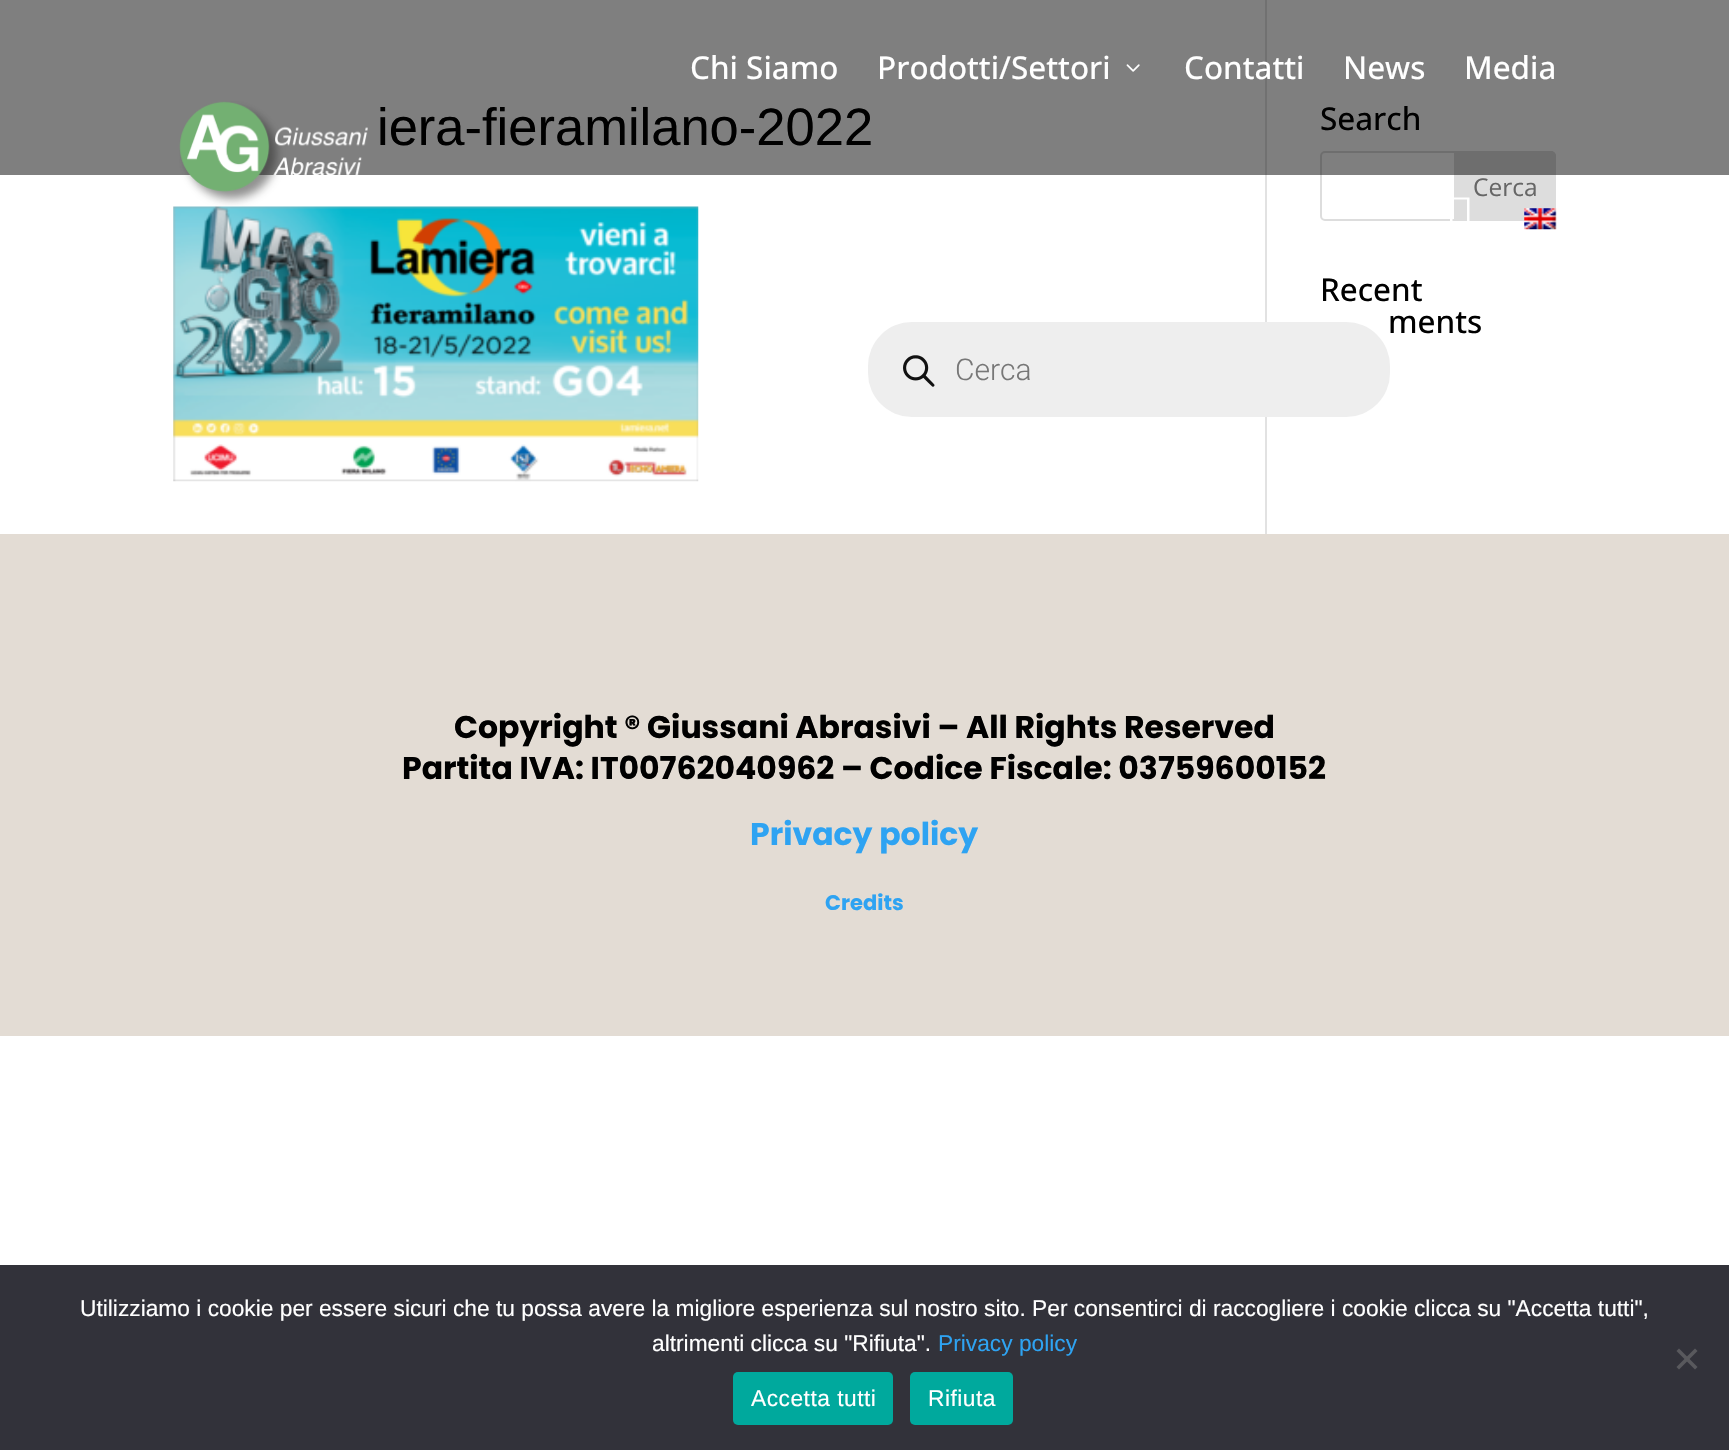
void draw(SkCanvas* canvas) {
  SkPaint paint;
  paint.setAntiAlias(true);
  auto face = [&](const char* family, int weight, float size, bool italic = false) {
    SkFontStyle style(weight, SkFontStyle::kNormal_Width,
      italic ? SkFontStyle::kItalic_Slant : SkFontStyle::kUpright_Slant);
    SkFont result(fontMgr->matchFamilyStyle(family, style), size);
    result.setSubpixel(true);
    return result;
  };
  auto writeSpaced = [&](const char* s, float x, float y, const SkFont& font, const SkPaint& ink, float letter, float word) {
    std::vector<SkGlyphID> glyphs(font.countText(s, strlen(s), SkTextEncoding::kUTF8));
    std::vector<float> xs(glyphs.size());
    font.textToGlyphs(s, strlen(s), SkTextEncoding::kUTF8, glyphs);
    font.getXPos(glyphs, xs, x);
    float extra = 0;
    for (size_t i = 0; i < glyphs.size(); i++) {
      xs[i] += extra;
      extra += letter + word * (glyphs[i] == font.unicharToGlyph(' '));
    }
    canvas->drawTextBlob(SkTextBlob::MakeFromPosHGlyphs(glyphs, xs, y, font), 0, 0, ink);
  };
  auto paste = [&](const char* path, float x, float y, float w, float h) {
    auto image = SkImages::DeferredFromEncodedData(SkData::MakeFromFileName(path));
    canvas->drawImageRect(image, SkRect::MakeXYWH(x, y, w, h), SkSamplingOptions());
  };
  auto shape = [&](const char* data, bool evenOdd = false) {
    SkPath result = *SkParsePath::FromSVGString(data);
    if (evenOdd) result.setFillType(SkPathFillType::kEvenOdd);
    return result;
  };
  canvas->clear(0xffffffff);
  paint.setStroke(true);
  paint.setStrokeWidth(2);
  paint.setColor(0xffdddddd);
  canvas->drawRoundRect(SkRect::MakeXYWH(1321, 152, 234, 68), 4, 4, paint);
  paint.setStroke(false);
  canvas->drawPath(shape("M1455 152H1551C1553 152 1555 154 1555 156V216C1555 218 1553 220 1551 220H1455Z"), paint);
  paint.setStroke(true);
  canvas->drawPath(shape("M1455 152H1551C1553 152 1555 154 1555 156V216C1555 218 1553 220 1551 220H1455Z"), paint);
  paint.setStroke(false);
  paint.setColor(0xffffffff);
  canvas->drawPath(shape("M1450 231V197.5H1469.5V231ZM1452.5 228.5H1467V199.5H1452.5Z"), paint);
  paste("img/3.png", 1524, 208, 33, 22);
  paint.setColor(0xffe2e2e2);
  canvas->drawRect(SkRect::MakeXYWH(1265, 0, 2, 534), paint);
  paint.setColor(0xffeeeeee);
  canvas->drawRoundRect(SkRect::MakeXYWH(868, 322, 522, 95), 44, 44, paint);
  paste("img/4.png", 903, 355, 32, 32);
  paste("img/5.png", 173, 206, 526, 276);
  paint.setColor(0xffe3dcd4);
  canvas->drawRect(SkRect::MakeXYWH(0, 534, 1729, 502), paint);
  paint.setColor(0xff32323a);
  canvas->drawRect(SkRect::MakeXYWH(0, 1265, 1729, 185), paint);
  paint.setColor(0xff59595d);
  canvas->drawPath(shape("M1695 1348.5L1697.5 1351L1679 1369.5L1676.5 1367Z"), paint);
  canvas->drawPath(shape("M1676.5 1351L1679 1348.5L1697.5 1367L1695 1369.5Z"), paint);
  paint.setColor(0xff00a99d);
  canvas->drawRoundRect(SkRect::MakeXYWH(733, 1372, 160, 53), 5, 5, paint);
  canvas->drawRoundRect(SkRect::MakeXYWH(910, 1372, 103, 53), 5, 5, paint);
  auto f0 = face("Roboto", 300, 30);
  paint.setColor(0xff777777);
  canvas->drawString("Cerca", 955, 380, f0, paint);
  auto f1 = face("Liberation Sans", 400, 52.5f);
  paint.setColor(0xff000000);
  canvas->drawString("iera-fieramilano-2022", 377, 145, f1, paint);
  auto f2 = face("Open Sans", 500, 31.5f);
  canvas->drawString("Search", 1320, 130, f2, paint);
  paint.setColor(0x80000000);
  canvas->drawRect(SkRect::MakeXYWH(0, 0, 1729, 175), paint);
  paint.setColor(0xffffffff);
  {
    const struct { const char* s; float x, y; } items[] = {
      {"Media", 1464, 79},
      {"News", 1343, 79},
      {"Contatti", 1184, 79},
    };
    for (auto [s, x, y] : items) {
      canvas->drawString(s, x, y, f2, paint);
    }
  }
  paste("img/2.png", 1126, 64, 14, 8);
  canvas->drawString("Prodotti/Settori", 877, 79, f2, paint);
  canvas->drawString("Chi Siamo", 690, 79, f2, paint);
  paste("img/1.png", 179, 101, 189, 105);
  auto f3 = face("Open Sans", 400, 24.5f);
  paint.setColor(0xff666666);
  canvas->drawString("Cerca", 1473, 196, f3, paint);
  paint.setColor(0xff000000);
  canvas->drawString("Recent", 1320, 301, f2, paint);
  canvas->drawString("ments", 1388, 333, f2, paint);
  auto f4 = face("Poppins", 700, 31.5f);
  canvas->drawString("Copyright ® Giussani Abrasivi – All Rights Reserved", 454, 738, f4, paint);
  canvas->drawString("Partita IVA: IT00762040962 – Codice Fiscale: 03759600152", 402, 779, f4, paint);
  paint.setColor(0xff2ea3f2);
  canvas->drawString("Privacy policy", 750, 845, f4, paint);
  auto f5 = face("Poppins", 700, 21);
  canvas->drawString("Credits", 825, 910, f5, paint);
  auto f6 = face("Liberation Sans", 400, 22.75f);
  paint.setColor(0xffffffff);
  canvas->drawString("Utilizziamo i cookie per essere sicuri che tu possa avere la migliore esperienza sul nostro sito. Per consentirci di raccogliere i cookie clicca su \"Accetta tutti\",", 80, 1316, f6, paint);
  canvas->drawString("altrimenti clicca su \"Rifiuta\".", 652, 1351, f6, paint);
  paint.setColor(0xff2ea3f2);
  canvas->drawString("Privacy policy", 938, 1351, f6, paint);
  paint.setColor(0xffffffff);
  writeSpaced("Accetta tutti", 751, 1406, f6, paint, 0.5f, 0);
  writeSpaced("Rifiuta", 928, 1406, f6, paint, 0.5f, 0);
}
